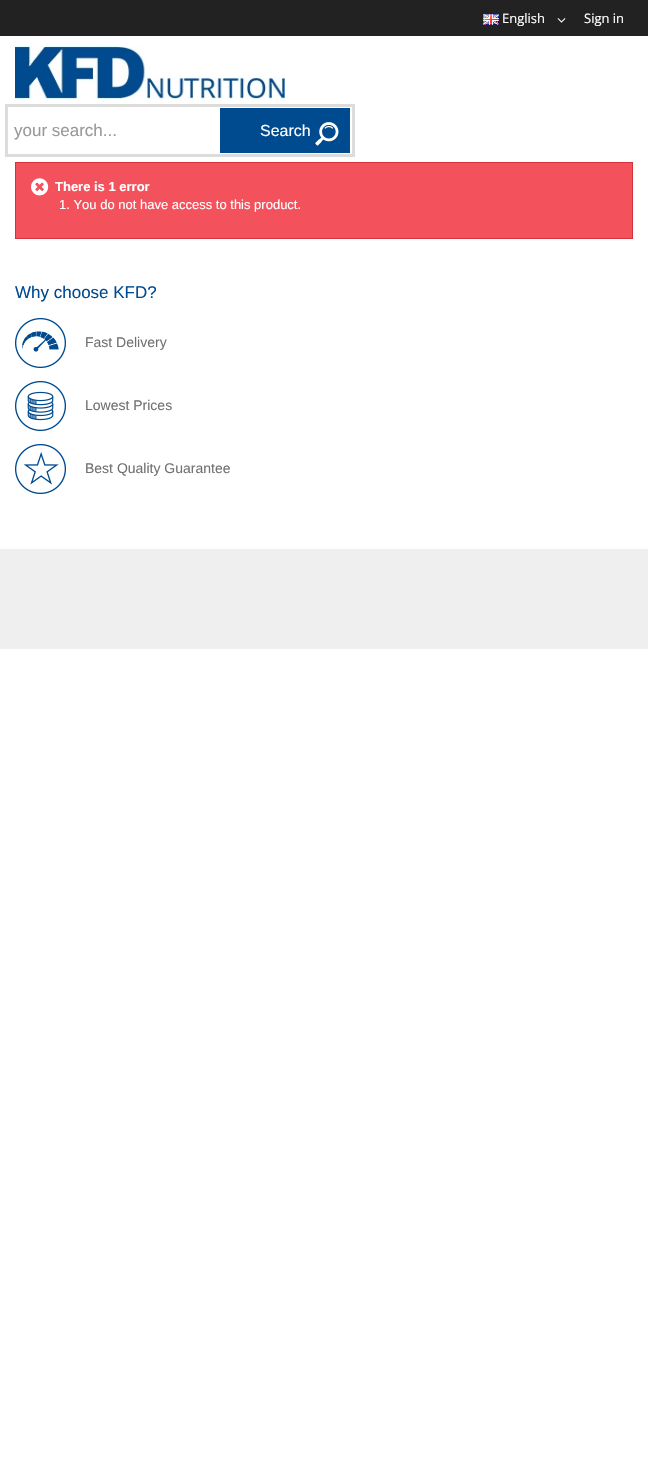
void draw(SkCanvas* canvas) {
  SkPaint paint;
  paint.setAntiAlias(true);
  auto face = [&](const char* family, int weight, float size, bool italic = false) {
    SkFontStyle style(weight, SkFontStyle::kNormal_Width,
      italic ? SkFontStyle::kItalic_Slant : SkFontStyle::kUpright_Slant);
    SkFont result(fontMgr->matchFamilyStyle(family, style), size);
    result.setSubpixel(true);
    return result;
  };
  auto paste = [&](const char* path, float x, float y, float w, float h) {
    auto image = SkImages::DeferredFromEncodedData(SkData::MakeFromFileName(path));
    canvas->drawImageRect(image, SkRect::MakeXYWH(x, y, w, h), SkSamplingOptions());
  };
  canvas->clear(0xffffffff);
  paint.setColor(0xff222222);
  canvas->drawRect(SkRect::MakeXYWH(0, 0, 648, 36), paint);
  paste("img/1.png", 483, 14, 16, 11);
  paste("img/2.png", 557, 18, 9, 5);
  paste("img/3.png", 15, 46, 270, 53);
  paint.setStroke(true);
  paint.setStrokeWidth(3);
  paint.setColor(0xffdcdcdc);
  canvas->drawRect(SkRect::MakeXYWH(6.5f, 105.5f, 347, 50), paint);
  paste("img/4.png", 220, 108, 130, 45);
  paint.setStroke(false);
  paint.setColor(0xfff3515c);
  canvas->drawRect(SkRect::MakeXYWH(15.5f, 162.5f, 617, 76), paint);
  paint.setStroke(true);
  paint.setStrokeWidth(1);
  paint.setColor(0xffd4323d);
  canvas->drawRect(SkRect::MakeXYWH(15.5f, 162.5f, 617, 76), paint);
  paste("img/5.png", 31, 178, 18, 18);
  paste("img/6.png", 15, 318, 51, 50);
  paste("img/7.png", 15, 381, 51, 50);
  paste("img/8.png", 15, 444, 51, 50);
  paint.setStroke(false);
  paint.setColor(0xffefefef);
  canvas->drawRect(SkRect::MakeXYWH(0, 549, 648, 100), paint);
  auto f0 = face("Open Sans", 400, 13);
  paint.setColor(0xffffffff);
  canvas->drawString("English", 502, 23, f0, paint);
  canvas->drawString("Sign in", 584, 23, f0, paint);
  auto f1 = face("Liberation Sans", 400, 17);
  paint.setColor(0xff999999);
  canvas->drawString("your search...", 14, 136, f1, paint);
  auto f2 = face("Liberation Sans", 400, 16);
  paint.setColor(0xffffffff);
  canvas->drawString("Search", 260, 136, f2, paint);
  auto f3 = face("Liberation Sans", 700, 13);
  canvas->drawString("There is 1 error", 55, 191, f3, paint);
  auto f4 = face("Liberation Sans", 400, 13);
  canvas->drawString("1. You do not have access to this product.", 59, 209, f4, paint);
  paint.setColor(0xff004a8f);
  canvas->drawString("Why choose KFD?", 15, 298, f1, paint);
  auto f5 = face("Liberation Sans", 400, 14);
  paint.setColor(0xff717171);
  {
    const struct { const char* s; float x, y; } items[] = {
      {"Fast Delivery", 85, 347},
      {"Lowest Prices", 85, 410},
      {"Best Quality Guarantee", 85, 473},
    };
    for (auto [s, x, y] : items) {
      canvas->drawString(s, x, y, f5, paint);
    }
  }
}
